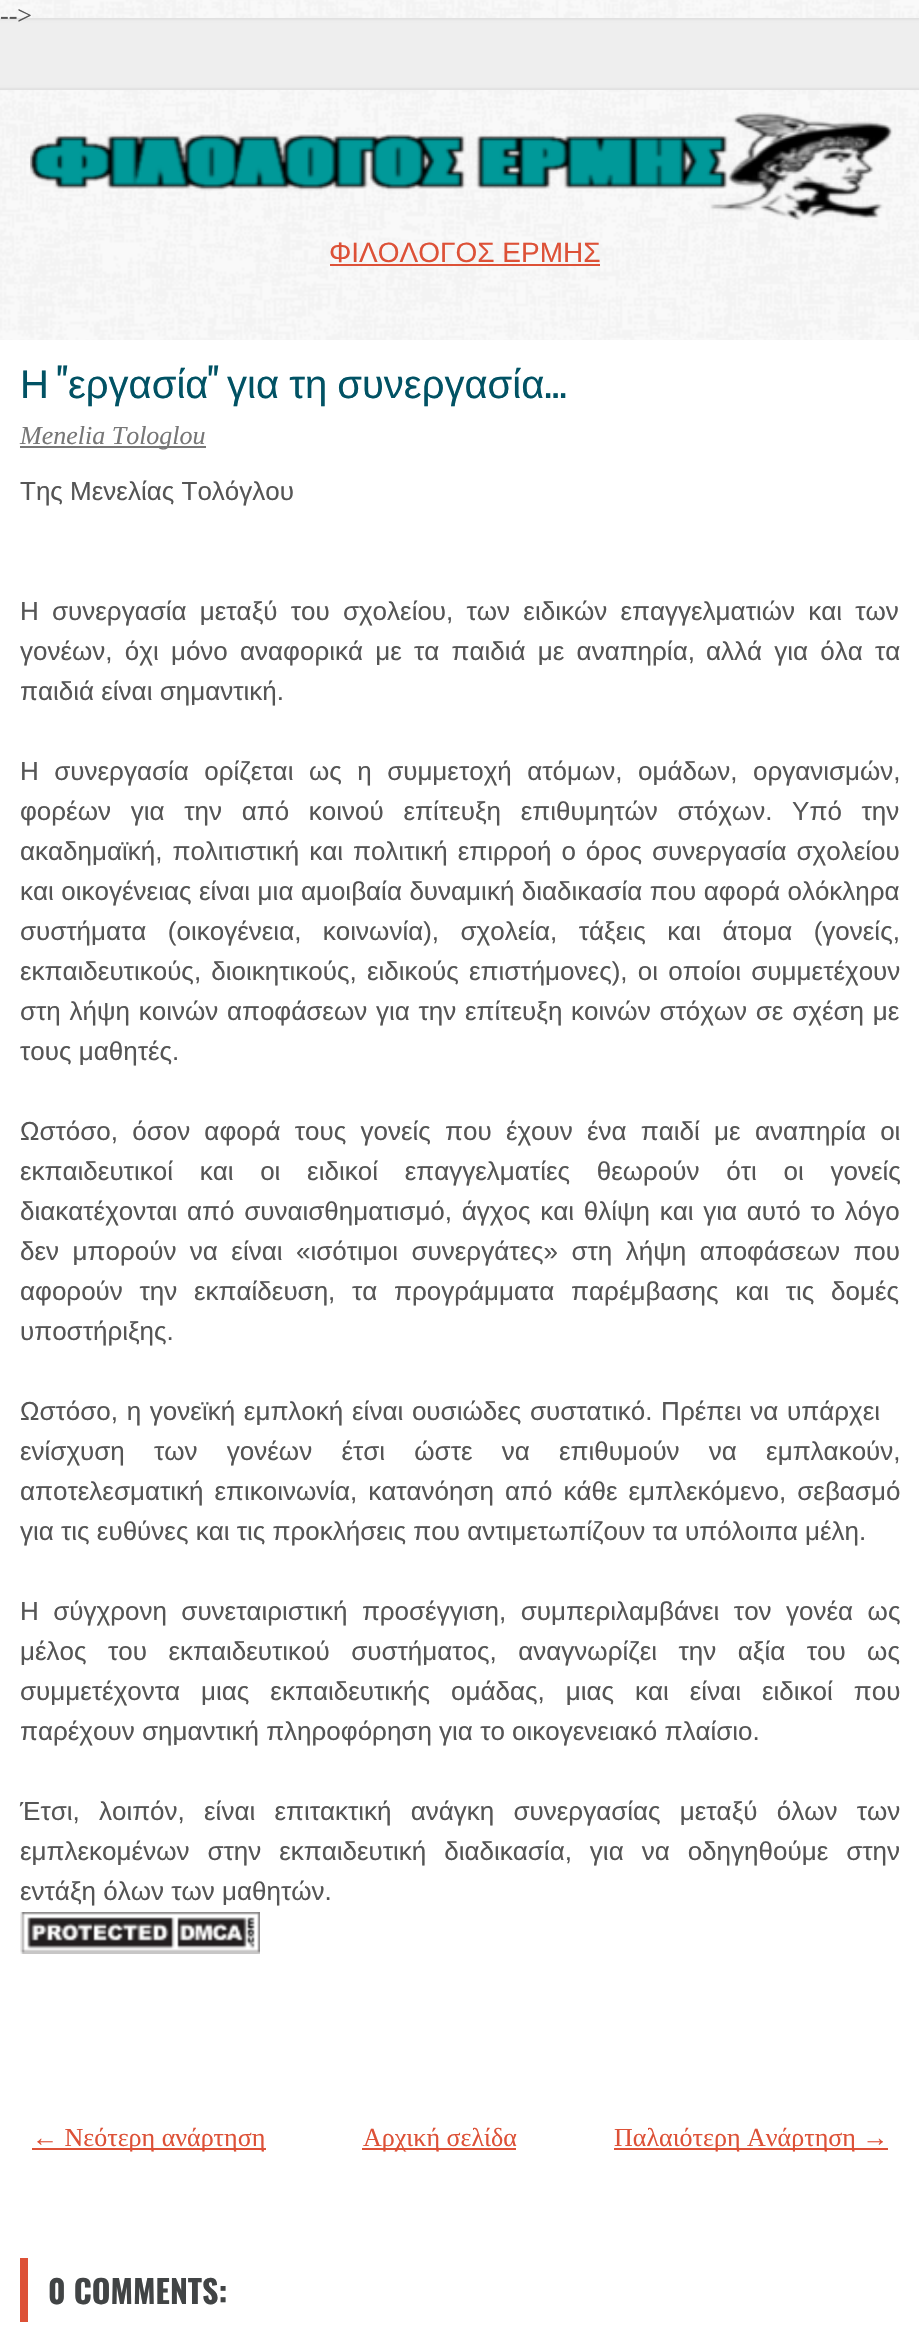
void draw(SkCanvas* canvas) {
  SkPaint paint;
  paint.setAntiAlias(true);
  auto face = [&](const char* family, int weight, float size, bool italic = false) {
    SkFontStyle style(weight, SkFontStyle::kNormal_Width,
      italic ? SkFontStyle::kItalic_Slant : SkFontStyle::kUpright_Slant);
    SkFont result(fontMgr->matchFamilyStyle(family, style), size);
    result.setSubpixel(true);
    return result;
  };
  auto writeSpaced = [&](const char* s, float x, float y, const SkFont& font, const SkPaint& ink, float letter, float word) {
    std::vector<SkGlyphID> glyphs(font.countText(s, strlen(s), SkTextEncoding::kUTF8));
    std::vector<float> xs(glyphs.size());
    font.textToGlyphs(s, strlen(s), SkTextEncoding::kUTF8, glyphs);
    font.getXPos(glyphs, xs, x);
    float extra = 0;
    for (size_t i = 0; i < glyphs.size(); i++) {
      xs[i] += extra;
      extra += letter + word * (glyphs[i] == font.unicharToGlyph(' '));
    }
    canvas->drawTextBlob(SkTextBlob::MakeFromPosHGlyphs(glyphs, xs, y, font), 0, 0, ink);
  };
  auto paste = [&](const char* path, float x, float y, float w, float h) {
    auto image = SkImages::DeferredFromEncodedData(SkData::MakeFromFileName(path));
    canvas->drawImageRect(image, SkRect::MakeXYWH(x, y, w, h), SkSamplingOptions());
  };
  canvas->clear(0xffffffff);
  paste("img/1.png", 0, 0, 919, 340);
  paste("img/2.png", 30, 112, 863, 109);
  paint.setColor(0xffdd5137);
  canvas->drawRect(SkRect::MakeXYWH(330, 264, 270, 2), paint);
  paint.setColor(0xff777777);
  canvas->drawRect(SkRect::MakeXYWH(20, 446, 186, 2), paint);
  paste("img/3.png", 20, 1912, 240, 42);
  {
    const struct { float x, y, w, h; SkColor color; } items[] = {
      {32, 2148, 234, 2, 0xffdd5137},
      {362, 2148, 154, 2, 0xffdd5137},
      {614, 2148, 274, 2, 0xffdd5137},
      {20, 2258, 8, 64, 0xffdd5137},
    };
    for (auto [x, y, w, h, color] : items) {
      paint.setColor(color);
      canvas->drawRect(SkRect::MakeXYWH(x, y, w, h), paint);
    }
  }
  auto f0 = face("Liberation Serif", 400, 26);
  paint.setColor(0xff555555);
  canvas->drawString("-->", 0, 24, f0, paint);
  auto f1 = face("Liberation Sans", 400, 28);
  paint.setColor(0xffdd5137);
  canvas->drawString("ΦΙΛΟΛΟΓΟΣ ΕΡΜΗΣ", 329, 262, f1, paint);
  auto f2 = face("Liberation Sans", 400, 40);
  paint.setColor(0xff015264);
  canvas->drawString("Η", 20, 398, f2, paint);
  auto f3 = face("Oswald", 400, 40);
  canvas->drawString("\"", 57, 398, f3, paint);
  canvas->drawString("εργασία", 68, 398, f2, paint);
  canvas->drawString("\"", 208, 398, f3, paint);
  writeSpaced("για τη συνεργασία", 227, 398, f2, paint, 0, -1);
  canvas->drawString("...", 544, 398, f3, paint);
  auto f4 = face("Liberation Serif", 400, 26, true);
  paint.setColor(0xff777777);
  canvas->drawString("Menelia Tologlou", 20, 444, f4, paint);
  auto f5 = face("Liberation Sans", 400, 26);
  paint.setColor(0xff555555);
  canvas->drawString("Της Μενελίας Τολόγλου", 20, 500, f5, paint);
  writeSpaced("Η συνεργασία μεταξύ του σχολείου, των ειδικών επαγγελματιών και των", 20, 620, f5, paint, 0, 6);
  writeSpaced("γονέων, όχι μόνο αναφορικά με τα παιδιά με αναπηρία,", 20, 660, f5, paint, 0, 5);
  writeSpaced("αλλά για όλα τα", 706, 660, f5, paint, 0, 5);
  canvas->drawString("παιδιά είναι σημαντική.", 20, 700, f5, paint);
  writeSpaced("Η συνεργασία ορίζεται ως η συμμετοχή ατόμων, ομάδων, οργανισμών,", 20, 780, f5, paint, 0, 8.25f);
  writeSpaced("φορέων για την από κοινού επίτευξη επιθυμητών στόχων. Υπό την", 20, 820, f5, paint, 0, 12.5f);
  writeSpaced("ακαδημαϊκή, πολιτιστική και πολιτική επιρροή ο όρος συνεργασία σχολείου", 20, 860, f5, paint, 0, 2.75f);
  writeSpaced("και οικογένειας είναι μια αμοιβαία δυναμική διαδικασία που αφορά ολόκληρα", 20, 900, f5, paint, 0, 0.25f);
  writeSpaced("συστήματα (οικογένεια, κοινωνία), σχολεία, τάξεις και άτομα (γονείς,", 20, 940, f5, paint, 0, 14.25f);
  writeSpaced("εκπαιδευτικούς, διοικητικούς, ειδικούς επιστήμονες), οι οποίοι συμμετέχουν", 20, 980, f5, paint, 0, 3);
  writeSpaced("στη λήψη κοινών αποφάσεων για την επίτευξη κοινών στόχων σε σχέση με", 20, 1020, f5, paint, 0, 1.5f);
  canvas->drawString("τους μαθητές.", 20, 1060, f5, paint);
  writeSpaced("Ωστόσο, όσον αφορά τους γονείς που έχουν ένα παιδί με αναπηρία οι", 20, 1140, f5, paint, 0, 7);
  writeSpaced("εκπαιδευτικοί και οι ειδικοί επαγγελματίες θεωρούν ότι οι γονείς", 20, 1180, f5, paint, 0, 19.5f);
  writeSpaced("διακατέχονται από συναισθηματισμό, άγχος και θλίψη και για αυτό το λόγο", 20, 1220, f5, paint, 0, 2.5f);
  writeSpaced("δεν μπορούν να είναι «ισότιμοι συνεργάτες» στη λήψη αποφάσεων που", 20, 1260, f5, paint, 0, 6.25f);
  writeSpaced("αφορούν την εκπαίδευση, τα προγράμματα παρέμβασης και τις δομές", 20, 1300, f5, paint, 0, 9.5f);
  canvas->drawString("υποστήριξης.", 20, 1340, f5, paint);
  writeSpaced("Ωστόσο, η γονεϊκή εμπλοκή είναι ουσιώδες συστατικό. Πρέπει να υπάρχει", 20, 1420, f5, paint, 0, 1.5f);
  writeSpaced("ενίσχυση των γονέων έτσι ώστε να επιθυμούν να εμπλακούν,", 20, 1460, f5, paint, 0, 22);
  writeSpaced("αποτελεσματική επικοινωνία, κατανόηση από κάθε εμπλεκόμενο, σεβασμό", 20, 1500, f5, paint, 0, 3.75f);
  canvas->drawString("για τις ευθύνες και τις προκλήσεις που αντιμετωπίζουν τα υπόλοιπα μέλη.", 20, 1540, f5, paint);
  writeSpaced("Η σύγχρονη συνεταιριστική προσέγγιση, συμπεριλαμβάνει τον γονέα ως", 20, 1620, f5, paint, 0, 7.25f);
  writeSpaced("μέλος του εκπαιδευτικού συστήματος, αναγνωρίζει την αξία του ως", 20, 1660, f5, paint, 0, 14.25f);
  writeSpaced("συμμετέχοντα μιας εκπαιδευτικής ομάδας, μιας και είναι ειδικοί που", 20, 1700, f5, paint, 0, 13.75f);
  canvas->drawString("παρέχουν σημαντική πληροφόρηση για το οικογενειακό πλαίσιο.", 20, 1740, f5, paint);
  writeSpaced("Έτσι, λοιπόν, είναι επιτακτική ανάγκη συνεργασίας μεταξύ όλων των", 20, 1820, f5, paint, 0, 12);
  writeSpaced("εμπλεκομένων στην εκπαιδευτική διαδικασία, για να οδηγηθούμε στην", 20, 1860, f5, paint, 0, 10.75f);
  canvas->drawString("εντάξη όλων των μαθητών.", 20, 1900, f5, paint);
  paint.setColor(0xffdd5137);
  {
    const struct { const char* s; float x, y; } items[] = {
      {"← Νεότερη ανάρτηση", 32, 2146},
      {"Αρχική σελίδα", 363, 2146},
      {"Παλαιότερη Ανάρτηση →", 614, 2146},
    };
    for (auto [s, x, y] : items) {
      canvas->drawString(s, x, y, f0, paint);
    }
  }
  auto f6 = face("Oswald", 700, 32);
  paint.setColor(0xff414445);
  canvas->drawString("0 COMMENTS:", 48, 2304, f6, paint);
}
